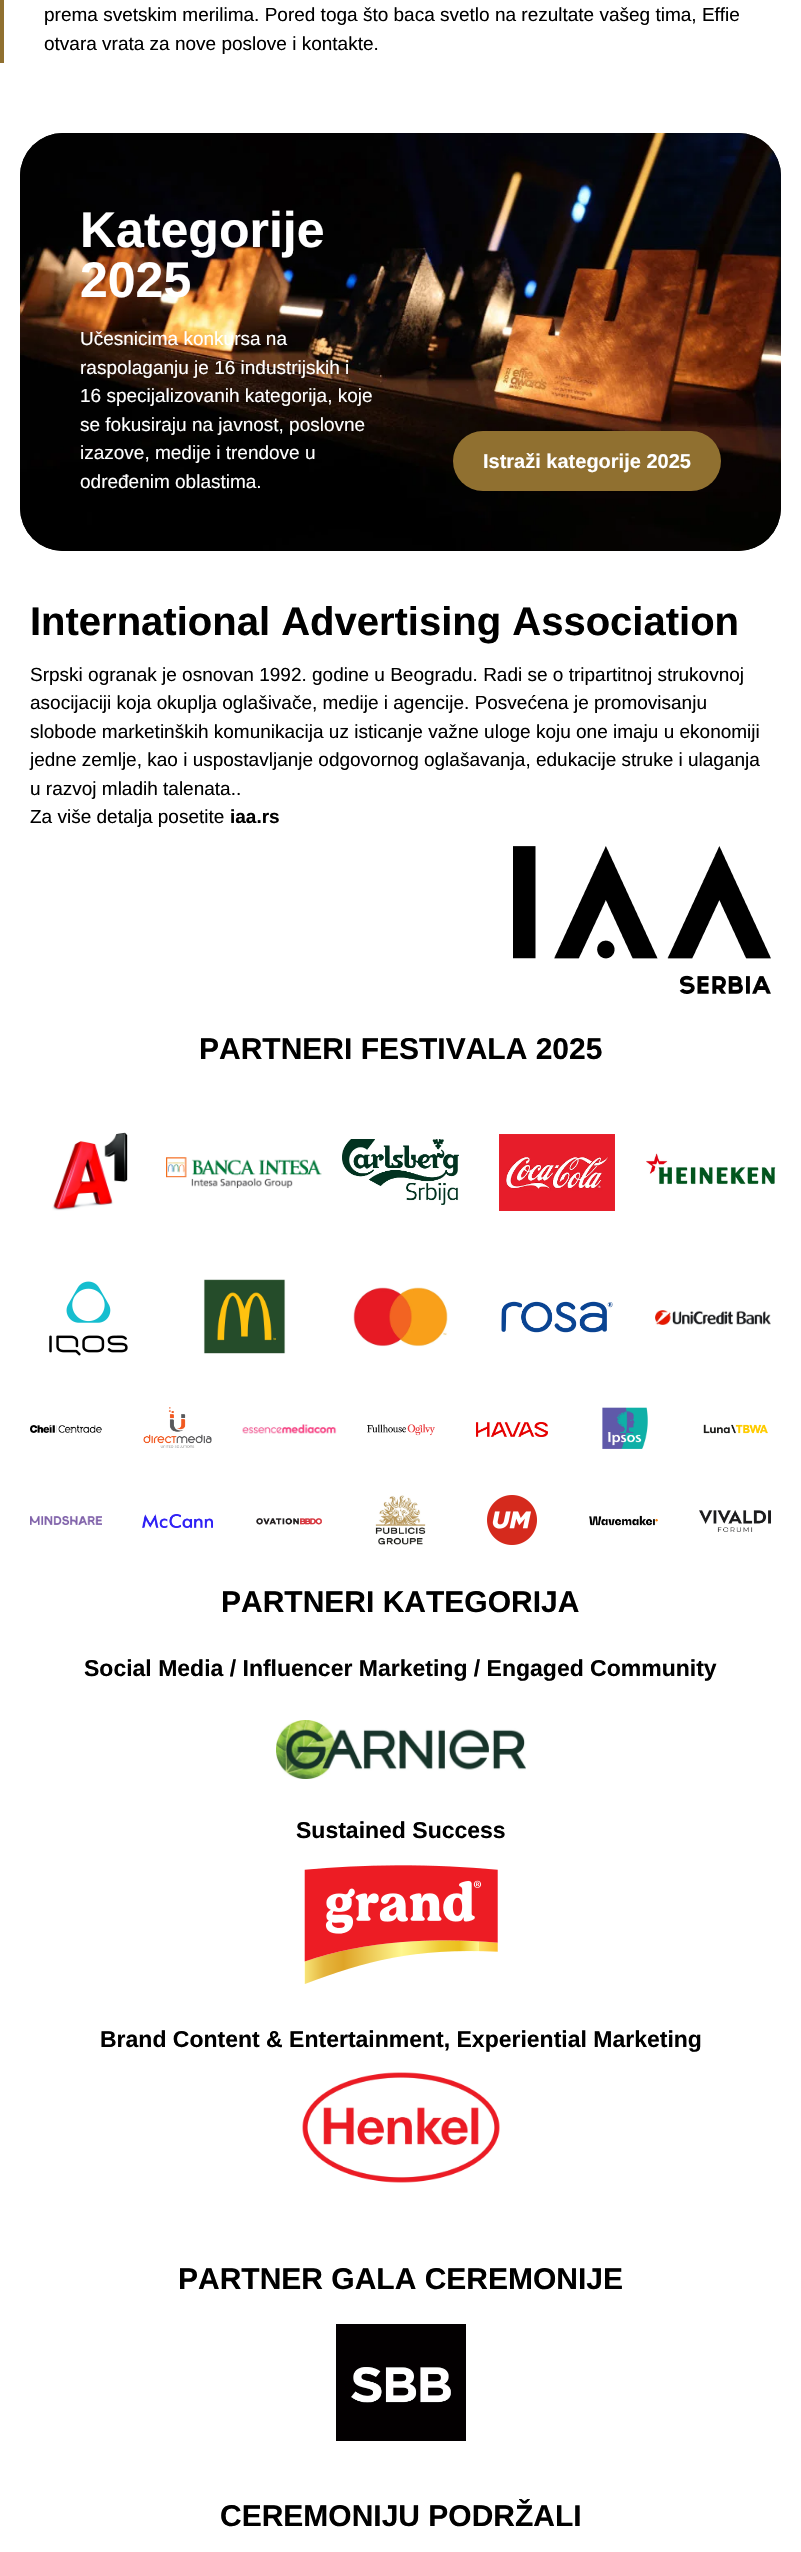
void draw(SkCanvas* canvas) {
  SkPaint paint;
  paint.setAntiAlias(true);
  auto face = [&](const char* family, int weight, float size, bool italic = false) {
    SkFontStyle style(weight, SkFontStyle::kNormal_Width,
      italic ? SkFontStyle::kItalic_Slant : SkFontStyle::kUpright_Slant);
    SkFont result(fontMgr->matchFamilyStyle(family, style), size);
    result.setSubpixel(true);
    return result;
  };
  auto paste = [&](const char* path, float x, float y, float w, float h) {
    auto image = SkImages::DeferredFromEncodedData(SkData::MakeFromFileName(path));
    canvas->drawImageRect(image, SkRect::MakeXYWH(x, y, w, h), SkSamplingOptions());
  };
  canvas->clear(0xffffffff);
  paint.setColor(0xff907030);
  canvas->drawRect(SkRect::MakeXYWH(0, 0, 4, 63), paint);
  paint.setColor(0xff000000);
  canvas->drawRoundRect(SkRect::MakeXYWH(20, 133, 761, 418), 43, 43, paint);
  paste("img/1.png", 20, 133, 761, 418);
  paint.setColor(0xff907030);
  canvas->drawRoundRect(SkRect::MakeXYWH(453, 431, 268, 60), 30, 30, paint);
  paste("img/2.png", 513, 846, 258, 148);
  paste("img/3.png", 52, 1132, 76, 79);
  paste("img/4.png", 166, 1157, 156, 31);
  paste("img/5.png", 342, 1139, 117, 66);
  paste("img/6.png", 499, 1134, 116, 77);
  paste("img/7.png", 646, 1153, 130, 32);
  paste("img/8.png", 49, 1281, 79, 75);
  paste("img/9.png", 203, 1279, 83, 75);
  paste("img/10.png", 353, 1287, 95, 60);
  paste("img/11.png", 501, 1301, 112, 32);
  paste("img/12.png", 655, 1310, 116, 15);
  paste("img/13.png", 30, 1425, 72, 8);
  paste("img/14.png", 143, 1407, 69, 41);
  paste("img/15.png", 242, 1424, 95, 10);
  paste("img/16.png", 367, 1424, 68, 12);
  paste("img/17.png", 476, 1422, 72, 15);
  paste("img/18.png", 602, 1407, 46, 42);
  paste("img/19.png", 703, 1424, 65, 10);
  paste("img/20.png", 30, 1516, 72, 9);
  paste("img/21.png", 142, 1514, 71, 14);
  paste("img/22.png", 256, 1518, 66, 7);
  paste("img/23.png", 375, 1495, 51, 50);
  paste("img/24.png", 487, 1495, 50, 50);
  paste("img/25.png", 589, 1515, 69, 11);
  paste("img/26.png", 699, 1510, 72, 22);
  paste("img/27.png", 276, 1720, 250, 59);
  paste("img/28.png", 304, 1865, 194, 119);
  paste("img/29.png", 302, 2072, 198, 111);
  paste("img/30.png", 336, 2324, 130, 117);
  auto f0 = face("Liberation Sans", 400, 19);
  paint.setColor(0xff000000);
  canvas->drawString("prema svetskim merilima. Pored toga što baca svetlo na rezultate vašeg tima, Effie", 44, 21, f0, paint);
  canvas->drawString("otvara vrata za nove poslove i kontakte.", 44, 50, f0, paint);
  auto f1 = face("Liberation Sans", 700, 50);
  paint.setColor(0xffffffff);
  canvas->drawString("Kategorije", 80, 247, f1, paint);
  canvas->drawString("2025", 80, 297, f1, paint);
  {
    const struct { const char* s; float x, y; } items[] = {
      {"Učesnicima konkursa na", 80, 345},
      {"raspolaganju je 16 industrijskih i", 80, 374},
      {"16 specijalizovanih kategorija, koje", 80, 402},
      {"se fokusiraju na javnost, poslovne", 80, 431},
      {"izazove, medije i trendove u", 80, 459},
      {"određenim oblastima.", 80, 488},
    };
    for (auto [s, x, y] : items) {
      canvas->drawString(s, x, y, f0, paint);
    }
  }
  auto f2 = face("Liberation Sans", 700, 20);
  canvas->drawString("Istraži kategorije 2025", 483, 468, f2, paint);
  auto f3 = face("Liberation Sans", 700, 40);
  paint.setColor(0xff000000);
  canvas->drawString("International Advertising Association", 30, 635, f3, paint);
  {
    const struct { const char* s; float x, y; } items[] = {
      {"Srpski ogranak je osnovan 1992. godine u Beogradu. Radi se o tripartitnoj strukovnoj", 30, 681},
      {"asocijaciji koja okuplja oglašivače, medije i agencije. Posvećena je promovisanju", 30, 709},
      {"slobode marketinških komunikacija uz isticanje važne uloge koju one imaju u ekonomiji", 30, 738},
      {"jedne zemlje, kao i uspostavljanje odgovornog oglašavanja, edukacije struke i ulaganja", 30, 766},
      {"u razvoj mladih talenata..", 30, 795},
      {"Za više detalja posetite", 30, 823},
    };
    for (auto [s, x, y] : items) {
      canvas->drawString(s, x, y, f0, paint);
    }
  }
  auto f4 = face("Liberation Sans", 700, 19);
  canvas->drawString("iaa.rs", 230, 823, f4, paint);
  auto f5 = face("Liberation Sans", 700, 30);
  canvas->drawString("PARTNERI FESTIVALA 2025", 199, 1059, f5, paint);
  canvas->drawString("PARTNERI KATEGORIJA", 221, 1612, f5, paint);
  auto f6 = face("Liberation Sans", 700, 23);
  {
    const struct { const char* s; float x, y; } items[] = {
      {"Social Media / Influencer Marketing / Engaged Community", 84, 1676},
      {"Sustained Success", 296, 1838},
      {"Brand Content & Entertainment, Experiential Marketing", 100, 2047},
    };
    for (auto [s, x, y] : items) {
      canvas->drawString(s, x, y, f6, paint);
    }
  }
  canvas->drawString("PARTNER GALA CEREMONIJE", 178, 2289, f5, paint);
  canvas->drawString("CEREMONIJU PODRŽALI", 220, 2526, f5, paint);
}
